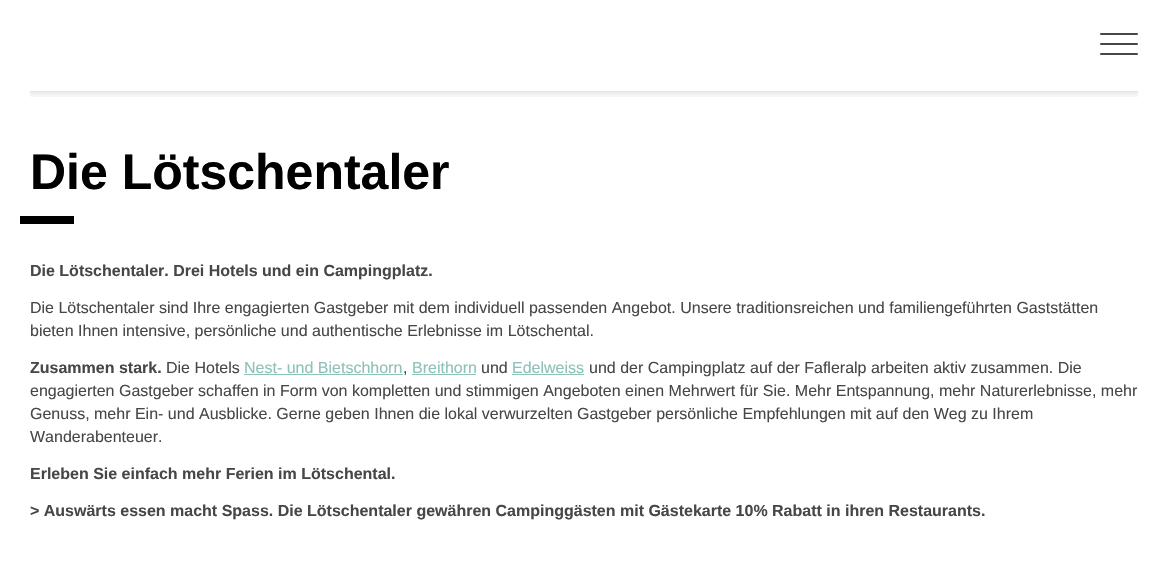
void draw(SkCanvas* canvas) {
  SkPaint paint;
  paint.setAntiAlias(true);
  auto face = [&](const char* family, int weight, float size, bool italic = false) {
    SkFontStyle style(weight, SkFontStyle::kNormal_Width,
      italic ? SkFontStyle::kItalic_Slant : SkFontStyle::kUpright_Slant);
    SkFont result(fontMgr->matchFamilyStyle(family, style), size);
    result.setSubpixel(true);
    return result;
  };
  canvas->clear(0xffffffff);
  canvas->save();
  canvas->clipRect(SkRect::MakeXYWH(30, 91, 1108, 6));
  paint.setColor(0x33000000);
  paint.setMaskFilter(SkMaskFilter::MakeBlur(kNormal_SkBlurStyle, 5));
  canvas->drawRect(SkRect::MakeXYWH(0, 0, 1168, 91), paint);
  paint.setMaskFilter(nullptr);
  canvas->restore();
  paint.setColor(0xff474747);
  canvas->drawRoundRect(SkRect::MakeXYWH(1100, 33, 38, 2), 1, 1, paint);
  canvas->drawRoundRect(SkRect::MakeXYWH(1100, 43, 38, 2), 1, 1, paint);
  canvas->drawRoundRect(SkRect::MakeXYWH(1100, 53, 38, 2), 1, 1, paint);
  {
    const struct { float x, y, w, h; SkColor color; } items[] = {
      {0, 91, 30, 8, 0xffffffff},
      {1138, 91, 30, 8, 0xffffffff},
      {20, 216, 54, 8, 0xff000000},
      {244, 374, 159, 1, 0xff8dc2b9},
      {412, 374, 64, 1, 0xff8dc2b9},
      {512, 374, 72, 1, 0xff8dc2b9},
    };
    for (auto [x, y, w, h, color] : items) {
      paint.setColor(color);
      canvas->drawRect(SkRect::MakeXYWH(x, y, w, h), paint);
    }
  }
  auto f0 = face("Liberation Sans", 700, 50);
  paint.setColor(0xff000000);
  canvas->drawString("Die Lötschentaler", 30, 189, f0, paint);
  auto f1 = face("Liberation Sans", 700, 16);
  paint.setColor(0xff474747);
  canvas->drawString("Die Lötschentaler. Drei Hotels und ein Campingplatz.", 30, 276, f1, paint);
  auto f2 = face("Liberation Sans", 400, 16);
  canvas->drawString("Die Lötschentaler sind Ihre engagierten Gastgeber mit dem individuell passenden Angebot. Unsere traditionsreichen und familiengeführten Gaststätten", 30, 313, f2, paint);
  canvas->drawString("bieten Ihnen intensive, persönliche und authentische Erlebnisse im Lötschental.", 30, 336, f2, paint);
  canvas->drawString("Zusammen stark.", 30, 373, f1, paint);
  canvas->drawString("Die Hotels", 166, 373, f2, paint);
  paint.setColor(0xff8dc2b9);
  canvas->drawString("Nest- und Bietschhorn", 244, 373, f2, paint);
  paint.setColor(0xff474747);
  canvas->drawString(",", 403, 373, f2, paint);
  paint.setColor(0xff8dc2b9);
  canvas->drawString("Breithorn", 412, 373, f2, paint);
  paint.setColor(0xff474747);
  canvas->drawString("und", 481, 373, f2, paint);
  paint.setColor(0xff8dc2b9);
  canvas->drawString("Edelweiss", 512, 373, f2, paint);
  paint.setColor(0xff474747);
  {
    const struct { const char* s; float x, y; } items[] = {
      {"und der Campingplatz auf der Fafleralp arbeiten aktiv zusammen. Die", 589, 373},
      {"engagierten Gastgeber schaffen in Form von kompletten und stimmigen Angeboten einen Mehrwert für Sie. Mehr Entspannung, mehr Naturerlebnisse, mehr", 30, 396},
      {"Genuss, mehr Ein- und Ausblicke. Gerne geben Ihnen die lokal verwurzelten Gastgeber persönliche Empfehlungen mit auf den Weg zu Ihrem", 30, 419},
      {"Wanderabenteuer.", 30, 442},
    };
    for (auto [s, x, y] : items) {
      canvas->drawString(s, x, y, f2, paint);
    }
  }
  canvas->drawString("Erleben Sie einfach mehr Ferien im Lötschental.", 30, 479, f1, paint);
  canvas->drawString("> Auswärts essen macht Spass. Die Lötschentaler gewähren Campinggästen mit Gästekarte 10% Rabatt in ihren Restaurants.", 30, 516, f1, paint);
}
